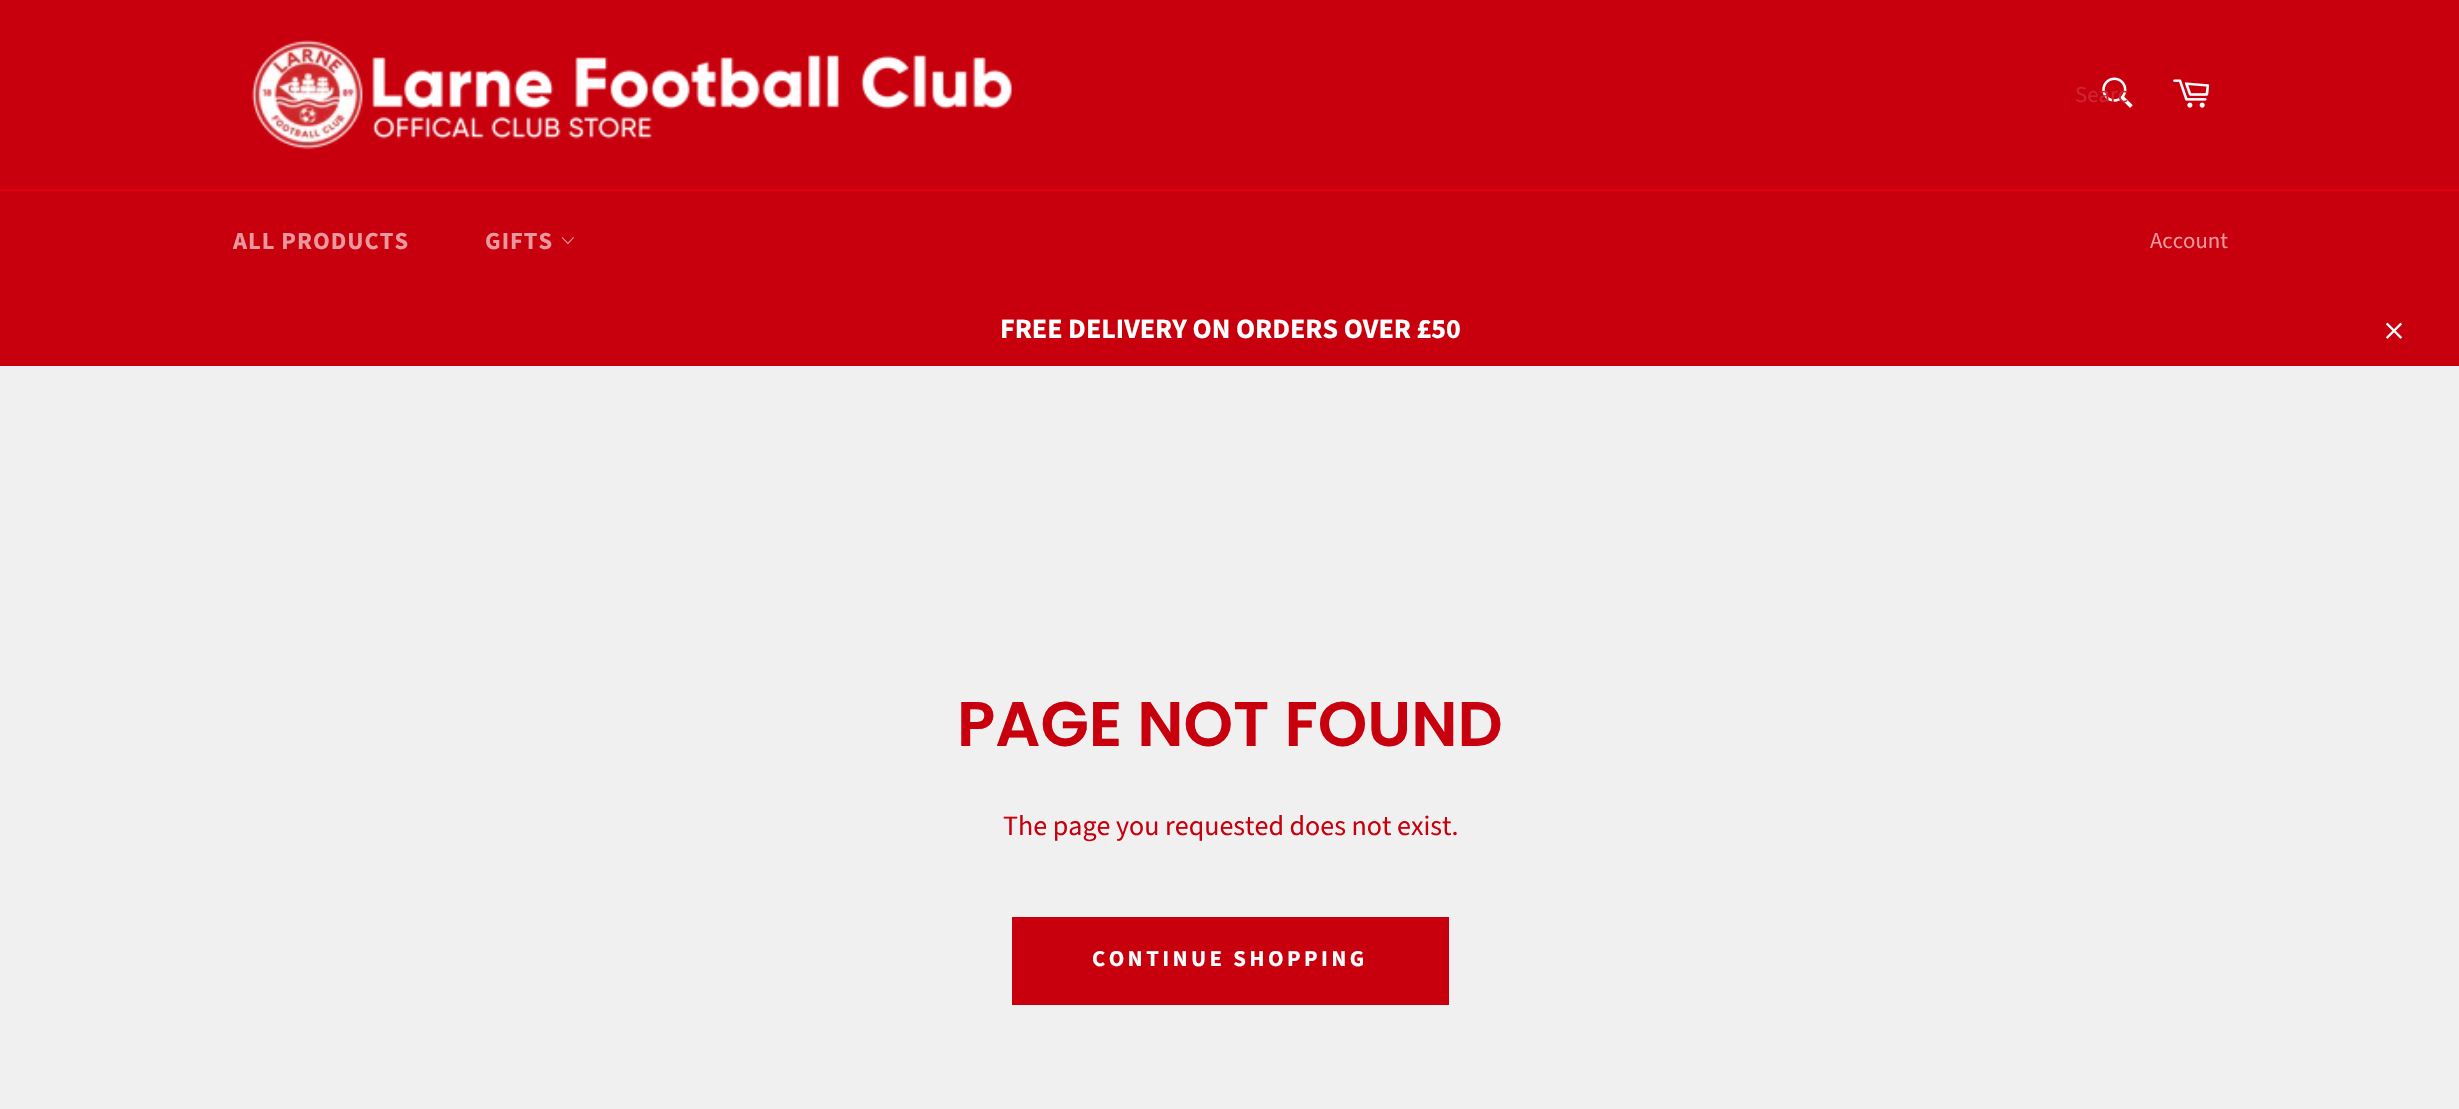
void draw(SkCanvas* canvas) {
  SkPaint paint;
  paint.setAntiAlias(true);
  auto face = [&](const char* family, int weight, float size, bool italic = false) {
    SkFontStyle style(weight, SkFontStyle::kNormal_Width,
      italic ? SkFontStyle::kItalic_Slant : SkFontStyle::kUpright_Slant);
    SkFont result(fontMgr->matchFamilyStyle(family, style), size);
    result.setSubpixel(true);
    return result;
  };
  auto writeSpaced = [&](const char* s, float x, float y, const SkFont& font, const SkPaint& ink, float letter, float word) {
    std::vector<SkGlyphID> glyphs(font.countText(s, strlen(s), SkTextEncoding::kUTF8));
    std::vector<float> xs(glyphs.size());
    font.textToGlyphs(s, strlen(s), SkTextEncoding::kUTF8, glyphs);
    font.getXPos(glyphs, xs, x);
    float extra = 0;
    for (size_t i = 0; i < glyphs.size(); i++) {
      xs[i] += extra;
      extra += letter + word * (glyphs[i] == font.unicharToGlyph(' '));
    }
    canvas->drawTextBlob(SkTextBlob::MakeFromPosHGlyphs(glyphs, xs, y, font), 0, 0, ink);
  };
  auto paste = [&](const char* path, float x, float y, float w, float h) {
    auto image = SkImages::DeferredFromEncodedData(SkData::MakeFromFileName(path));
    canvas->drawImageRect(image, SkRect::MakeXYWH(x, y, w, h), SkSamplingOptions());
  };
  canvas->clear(0xfff0f0f0);
  paint.setColor(0xffc8000d);
  canvas->drawRect(SkRect::MakeXYWH(0, 0, 2459, 366), paint);
  paste("img/1.png", 251, 40, 762, 110);
  paste("img/2.png", 2102, 77, 31, 31);
  paste("img/3.png", 2173, 79, 37, 29);
  paint.setColor(0xffe2000f);
  canvas->drawRect(SkRect::MakeXYWH(0, 189, 2459, 2), paint);
  paste("img/4.png", 561, 237, 13, 8);
  paste("img/5.png", 2385, 322, 18, 17);
  paint.setColor(0xffc8000d);
  canvas->drawRect(SkRect::MakeXYWH(1012, 917, 437, 88), paint);
  auto f0 = face("Source Sans Pro", 400, 22.75f);
  paint.setColor(0xffd02530);
  canvas->drawString("Searc", 2075, 102, f0, paint);
  auto f1 = face("Source Sans Pro", 700, 24.5f);
  paint.setColor(0xffe9999e);
  writeSpaced("ALL PRODUCTS", 233, 249, f1, paint, 1, 0);
  writeSpaced("GIFTS", 485, 249, f1, paint, 1, 0);
  canvas->drawString("Account", 2150, 248, f0, paint);
  auto f2 = face("Source Sans Pro", 700, 28);
  paint.setColor(0xffffffff);
  canvas->drawString("FREE DELIVERY ON ORDERS OVER £50", 1000, 338, f2, paint);
  auto f3 = face("Poppins", 600, 63);
  paint.setColor(0xffc8000d);
  canvas->drawString("PAGE NOT FOUND", 957, 746, f3, paint);
  auto f4 = face("Source Sans Pro", 400, 28);
  canvas->drawString("The page you requested does not exist.", 1003, 835, f4, paint);
  auto f5 = face("Source Sans Pro", 700, 22.75f);
  paint.setColor(0xffffffff);
  writeSpaced("CONTINUE SHOPPING", 1092, 966, f5, paint, 3.4f, 0);
}
